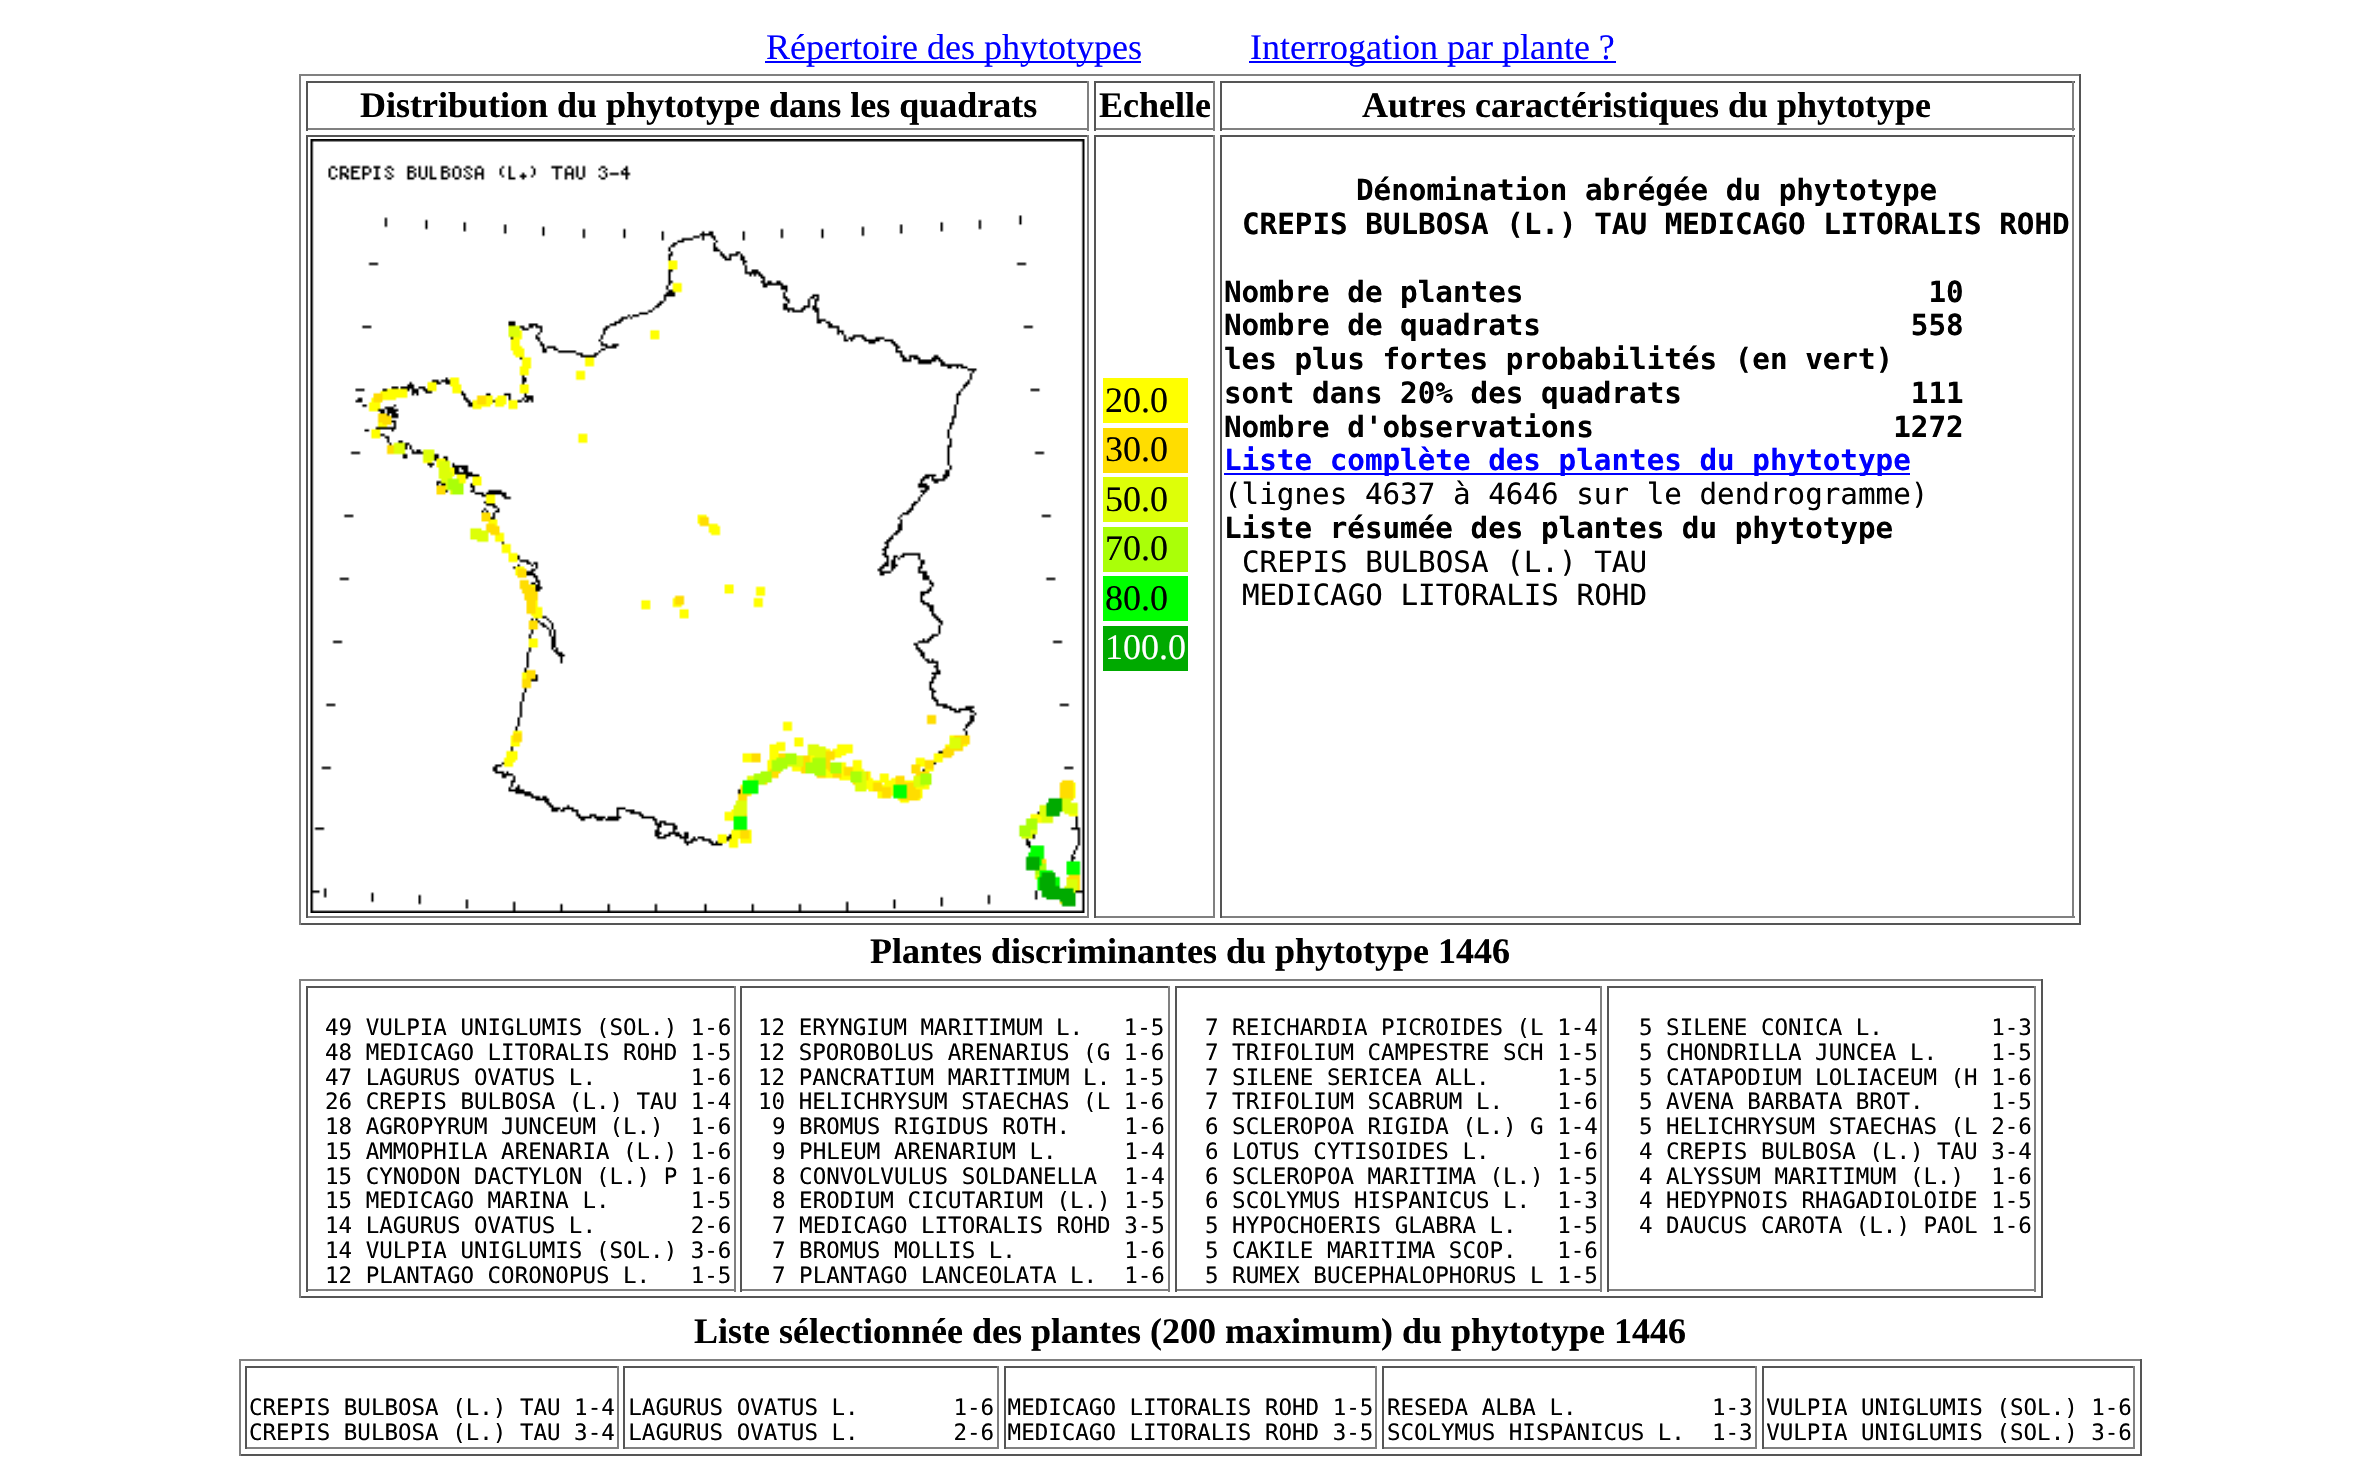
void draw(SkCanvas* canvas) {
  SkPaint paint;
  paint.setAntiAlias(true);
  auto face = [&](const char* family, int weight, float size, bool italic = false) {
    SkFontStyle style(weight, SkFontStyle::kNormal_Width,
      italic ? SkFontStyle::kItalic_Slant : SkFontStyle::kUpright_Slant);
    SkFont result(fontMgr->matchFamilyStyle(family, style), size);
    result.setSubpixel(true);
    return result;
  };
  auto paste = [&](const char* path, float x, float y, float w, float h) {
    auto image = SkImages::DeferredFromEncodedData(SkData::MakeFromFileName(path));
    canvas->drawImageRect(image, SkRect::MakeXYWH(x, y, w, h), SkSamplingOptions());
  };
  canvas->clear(0xffffffff);
  {
    const struct { float x, y, w, h; SkColor color; } items[] = {
      {765, 61, 376, 2, 0xff0000ff},
      {1249, 61, 367, 2, 0xff0000ff},
      {299, 74, 1782, 2, 0xff808080},
      {2079, 74, 2, 851, 0xff555555},
      {299, 923, 1782, 2, 0xff555555},
      {299, 74, 2, 851, 0xff808080},
      {306, 81, 783, 2, 0xff555555},
      {1087, 81, 2, 50, 0xff808080},
      {306, 128, 783, 2, 0xff808080},
      {306, 81, 2, 50, 0xff555555},
      {1094, 81, 121, 2, 0xff555555},
      {1213, 81, 2, 50, 0xff808080},
      {1094, 128, 121, 2, 0xff808080},
      {1094, 81, 2, 50, 0xff555555},
      {1220, 81, 855, 2, 0xff555555},
      {2072, 81, 2, 50, 0xff808080},
      {1220, 128, 855, 2, 0xff808080},
      {1220, 81, 2, 50, 0xff555555},
      {306, 135, 783, 2, 0xff555555},
      {1087, 135, 2, 783, 0xff808080},
      {306, 916, 783, 2, 0xff808080},
      {306, 135, 2, 783, 0xff555555},
    };
    for (auto [x, y, w, h, color] : items) {
      paint.setColor(color);
      canvas->drawRect(SkRect::MakeXYWH(x, y, w, h), paint);
    }
  }
  paste("img/1.png", 310, 139, 775, 774);
  {
    const struct { float x, y, w, h; SkColor color; } items[] = {
      {1094, 135, 121, 2, 0xff555555},
      {1213, 135, 2, 783, 0xff808080},
      {1094, 916, 121, 2, 0xff808080},
      {1094, 135, 2, 783, 0xff555555},
      {1103, 378, 85, 45, 0xffffff00},
      {1103, 428, 85, 45, 0xffffdd00},
      {1103, 477, 85, 45, 0xffddff08},
      {1103, 527, 85, 45, 0xffaaff08},
      {1103, 576, 85, 45, 0xff00ff00},
      {1103, 626, 85, 45, 0xff00aa00},
      {1220, 135, 855, 2, 0xff555555},
      {2072, 135, 2, 783, 0xff808080},
      {1220, 916, 855, 2, 0xff808080},
      {1220, 135, 2, 783, 0xff555555},
      {1224, 473, 686, 2, 0xff0000ff},
      {299, 979, 1744, 2, 0xff808080},
      {2041, 979, 2, 319, 0xff555555},
      {299, 1296, 1744, 2, 0xff555555},
      {299, 979, 2, 319, 0xff808080},
      {306, 986, 430, 2, 0xff555555},
      {734, 986, 2, 306, 0xff808080},
      {306, 1289, 430, 2, 0xff808080},
      {306, 986, 2, 306, 0xff555555},
      {740, 986, 430, 2, 0xff555555},
      {1168, 986, 2, 306, 0xff808080},
      {740, 1289, 430, 2, 0xff808080},
      {740, 986, 2, 306, 0xff555555},
      {1175, 986, 427, 2, 0xff555555},
      {1600, 986, 2, 306, 0xff808080},
      {1175, 1289, 427, 2, 0xff808080},
      {1175, 986, 2, 306, 0xff555555},
      {1607, 986, 429, 2, 0xff555555},
      {2034, 986, 2, 306, 0xff808080},
      {1607, 1289, 429, 2, 0xff808080},
      {1607, 986, 2, 306, 0xff555555},
      {239, 1359, 1903, 2, 0xff808080},
      {2140, 1359, 2, 97, 0xff555555},
      {239, 1454, 1903, 2, 0xff555555},
      {239, 1359, 2, 97, 0xff808080},
      {623, 1366, 376, 2, 0xff555555},
      {997, 1366, 2, 83, 0xff808080},
      {623, 1447, 376, 2, 0xff808080},
      {623, 1366, 2, 83, 0xff555555},
      {1004, 1366, 373, 2, 0xff555555},
      {1375, 1366, 2, 83, 0xff808080},
      {1004, 1447, 373, 2, 0xff808080},
      {1004, 1366, 2, 83, 0xff555555},
      {1382, 1366, 375, 2, 0xff555555},
      {1755, 1366, 2, 83, 0xff808080},
      {1382, 1447, 375, 2, 0xff808080},
      {1382, 1366, 2, 83, 0xff555555},
      {1762, 1366, 373, 2, 0xff555555},
      {2133, 1366, 2, 83, 0xff808080},
      {1762, 1447, 373, 2, 0xff808080},
      {1762, 1366, 2, 83, 0xff555555},
      {245, 1366, 374, 2, 0xff555555},
      {617, 1366, 2, 83, 0xff808080},
      {245, 1447, 374, 2, 0xff808080},
      {245, 1366, 2, 83, 0xff555555},
    };
    for (auto [x, y, w, h, color] : items) {
      paint.setColor(color);
      canvas->drawRect(SkRect::MakeXYWH(x, y, w, h), paint);
    }
  }
  auto f0 = face("Liberation Serif", 400, 36);
  paint.setColor(0xff0000ff);
  canvas->drawString("Répertoire des phytotypes", 766, 59, f0, paint);
  canvas->drawString("Interrogation par plante ?", 1250, 59, f0, paint);
  auto f1 = face("Liberation Serif", 700, 36);
  paint.setColor(0xff000000);
  {
    const struct { const char* s; float x, y; } items[] = {
      {"Distribution du phytotype dans les quadrats", 360, 117},
      {"Echelle", 1099, 117},
      {"Autres caractéristiques du phytotype", 1362, 117},
    };
    for (auto [s, x, y] : items) {
      canvas->drawString(s, x, y, f1, paint);
    }
  }
  {
    const struct { const char* s; float x, y; } items[] = {
      {"20.0", 1105, 412},
      {"30.0", 1105, 461},
      {"50.0", 1105, 511},
      {"70.0", 1105, 560},
      {"80.0", 1105, 610},
    };
    for (auto [s, x, y] : items) {
      canvas->drawString(s, x, y, f0, paint);
    }
  }
  paint.setColor(0xffffffff);
  canvas->drawString("100.0", 1105, 659, f0, paint);
  auto f2 = face("DejaVu Sans Mono", 700, 29.25f);
  paint.setColor(0xff000000);
  {
    const struct { const char* s; float x, y; } items[] = {
      {"Dénomination abrégée du phytotype", 1356, 200},
      {"CREPIS BULBOSA (L.) TAU MEDICAGO LITORALIS ROHD", 1242, 234},
      {"Nombre de plantes                       10", 1224, 302},
      {"Nombre de quadrats                     558", 1224, 335},
      {"les plus fortes probabilités (en vert)", 1224, 369},
      {"sont dans 20% des quadrats             111", 1224, 403},
      {"Nombre d'observations                 1272", 1224, 437},
    };
    for (auto [s, x, y] : items) {
      canvas->drawString(s, x, y, f2, paint);
    }
  }
  paint.setColor(0xff0000ff);
  canvas->drawString("Liste complète des plantes du phytotype", 1224, 470, f2, paint);
  auto f3 = face("DejaVu Sans Mono", 400, 29.25f);
  paint.setColor(0xff000000);
  canvas->drawString("(lignes 4637 à 4646 sur le dendrogramme)", 1224, 504, f3, paint);
  canvas->drawString("Liste résumée des plantes du phytotype", 1224, 538, f2, paint);
  canvas->drawString("CREPIS BULBOSA (L.) TAU", 1242, 572, f3, paint);
  canvas->drawString("MEDICAGO LITORALIS ROHD", 1242, 605, f3, paint);
  canvas->drawString("Plantes discriminantes du phytotype 1446", 870, 963, f1, paint);
  auto f4 = face("DejaVu Sans Mono", 400, 22.5f);
  {
    const struct { const char* s; float x, y; } items[] = {
      {"49 VULPIA UNIGLUMIS (SOL.) 1-6", 325, 1035},
      {"48 MEDICAGO LITORALIS ROHD 1-5", 325, 1060},
      {"47 LAGURUS OVATUS L.       1-6", 325, 1085},
      {"26 CREPIS BULBOSA (L.) TAU 1-4", 325, 1109},
      {"18 AGROPYRUM JUNCEUM (L.)  1-6", 325, 1134},
      {"15 AMMOPHILA ARENARIA (L.) 1-6", 325, 1159},
      {"15 CYNODON DACTYLON (L.) P 1-6", 325, 1184},
      {"15 MEDICAGO MARINA L.      1-5", 325, 1208},
      {"14 LAGURUS OVATUS L.       2-6", 325, 1233},
      {"14 VULPIA UNIGLUMIS (SOL.) 3-6", 325, 1258},
      {"12 PLANTAGO CORONOPUS L.   1-5", 325, 1283},
      {"12 ERYNGIUM MARITIMUM L.   1-5", 758, 1035},
      {"12 SPOROBOLUS ARENARIUS (G 1-6", 758, 1060},
      {"12 PANCRATIUM MARITIMUM L. 1-5", 758, 1085},
      {"10 HELICHRYSUM STAECHAS (L 1-6", 758, 1109},
      {"9 BROMUS RIGIDUS ROTH.    1-6", 772, 1134},
      {"9 PHLEUM ARENARIUM L.     1-4", 772, 1159},
      {"8 CONVOLVULUS SOLDANELLA  1-4", 772, 1184},
      {"8 ERODIUM CICUTARIUM (L.) 1-5", 772, 1208},
      {"7 MEDICAGO LITORALIS ROHD 3-5", 772, 1233},
      {"7 BROMUS MOLLIS L.        1-6", 772, 1258},
      {"7 PLANTAGO LANCEOLATA L.  1-6", 772, 1283},
      {"7 REICHARDIA PICROIDES (L 1-4", 1205, 1035},
      {"7 TRIFOLIUM CAMPESTRE SCH 1-5", 1205, 1060},
      {"7 SILENE SERICEA ALL.     1-5", 1205, 1085},
      {"7 TRIFOLIUM SCABRUM L.    1-6", 1205, 1109},
      {"6 SCLEROPOA RIGIDA (L.) G 1-4", 1205, 1134},
      {"6 LOTUS CYTISOIDES L.     1-6", 1205, 1159},
      {"6 SCLEROPOA MARITIMA (L.) 1-5", 1205, 1184},
      {"6 SCOLYMUS HISPANICUS L.  1-3", 1205, 1208},
      {"5 HYPOCHOERIS GLABRA L.   1-5", 1205, 1233},
      {"5 CAKILE MARITIMA SCOP.   1-6", 1205, 1258},
      {"5 RUMEX BUCEPHALOPHORUS L 1-5", 1205, 1283},
      {"5 SILENE CONICA L.        1-3", 1639, 1035},
      {"5 CHONDRILLA JUNCEA L.    1-5", 1639, 1060},
      {"5 CATAPODIUM LOLIACEUM (H 1-6", 1639, 1085},
      {"5 AVENA BARBATA BROT.     1-5", 1639, 1109},
      {"5 HELICHRYSUM STAECHAS (L 2-6", 1639, 1134},
      {"4 CREPIS BULBOSA (L.) TAU 3-4", 1639, 1159},
      {"4 ALYSSUM MARITIMUM (L.)  1-6", 1639, 1184},
      {"4 HEDYPNOIS RHAGADIOLOIDE 1-5", 1639, 1208},
      {"4 DAUCUS CAROTA (L.) PAOL 1-6", 1639, 1233},
    };
    for (auto [s, x, y] : items) {
      canvas->drawString(s, x, y, f4, paint);
    }
  }
  canvas->drawString("Liste sélectionnée des plantes (200 maximum) du phytotype 1446", 694, 1343, f1, paint);
  canvas->drawString("CREPIS BULBOSA (L.) TAU 1-4 LAGURUS OVATUS L.       1-6 MEDICAGO LITORALIS ROHD 1-5 RESEDA ALBA L.          1-3 VULPIA UNIGLUMIS (SOL.) 1-6", 249, 1415, f4, paint);
  canvas->drawString("CREPIS BULBOSA (L.) TAU 3-4 LAGURUS OVATUS L.       2-6 MEDICAGO LITORALIS ROHD 3-5 SCOLYMUS HISPANICUS L.  1-3 VULPIA UNIGLUMIS (SOL.) 3-6", 249, 1440, f4, paint);
}
